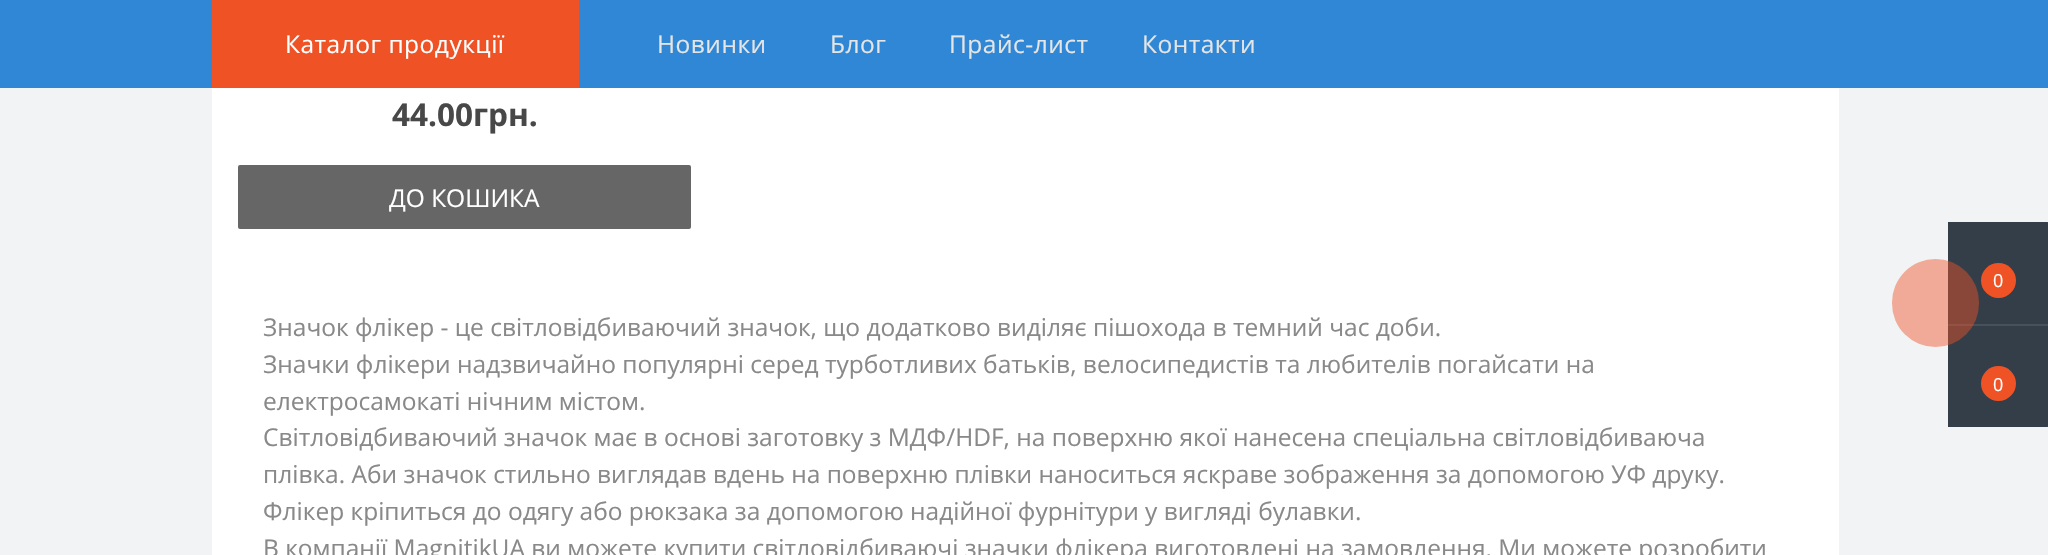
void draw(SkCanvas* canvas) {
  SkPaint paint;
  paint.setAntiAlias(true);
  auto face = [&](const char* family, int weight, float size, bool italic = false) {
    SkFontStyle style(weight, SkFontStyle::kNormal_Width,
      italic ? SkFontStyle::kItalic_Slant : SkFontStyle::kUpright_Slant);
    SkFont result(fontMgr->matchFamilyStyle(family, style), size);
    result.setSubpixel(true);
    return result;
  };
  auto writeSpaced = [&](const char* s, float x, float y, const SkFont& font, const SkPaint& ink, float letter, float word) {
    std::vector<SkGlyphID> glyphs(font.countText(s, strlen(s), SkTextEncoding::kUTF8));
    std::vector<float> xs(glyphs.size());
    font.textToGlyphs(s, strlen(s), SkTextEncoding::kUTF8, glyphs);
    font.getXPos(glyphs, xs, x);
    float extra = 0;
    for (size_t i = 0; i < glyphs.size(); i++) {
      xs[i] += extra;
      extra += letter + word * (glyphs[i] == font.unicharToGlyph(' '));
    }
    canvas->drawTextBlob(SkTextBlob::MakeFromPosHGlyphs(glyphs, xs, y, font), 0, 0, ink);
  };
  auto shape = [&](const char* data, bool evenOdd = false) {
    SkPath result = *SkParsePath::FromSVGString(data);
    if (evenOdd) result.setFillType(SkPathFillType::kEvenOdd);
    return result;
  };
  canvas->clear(0xfff2f3f5);
  paint.setColor(0xffffffff);
  canvas->drawRect(SkRect::MakeXYWH(212, 88, 1627, 467), paint);
  canvas->drawRoundRect(SkRect::MakeXYWH(212, -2, 506, 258), 2, 2, paint);
  paint.setColor(0xff2f87d5);
  canvas->drawRect(SkRect::MakeXYWH(0, 0, 2048, 88), paint);
  paint.setColor(0xffee5225);
  canvas->drawRect(SkRect::MakeXYWH(212, 0, 367, 88), paint);
  paint.setColor(0xff666666);
  canvas->drawRoundRect(SkRect::MakeXYWH(238, 165, 453, 64), 2, 2, paint);
  paint.setColor(0xff343e48);
  canvas->drawPath(shape("M1948 222H2047C2048 222 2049 223 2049 224V425C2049 426 2048 427 2047 427H1948Z"), paint);
  paint.setColor(0xff48515a);
  canvas->drawRect(SkRect::MakeXYWH(1948, 324, 100, 2), paint);
  paint.setColor(0x73ee5225);
  canvas->drawRoundRect(SkRect::MakeXYWH(1892, 259, 87, 88), 43.5f, 43.5f, paint);
  paint.setColor(0xffee5225);
  canvas->drawCircle(1998.5f, 280.5f, 17.5f, paint);
  canvas->drawCircle(1998.5f, 383.5f, 17.5f, paint);
  auto f0 = face("Open Sans", 400, 24.5f);
  paint.setColor(0xffffffff);
  writeSpaced("Каталог продукції", 285, 53, f0, paint, 0.5f, 0);
  paint.setColor(0xffe5e5e5);
  {
    const struct { const char* s; float x, y; } items[] = {
      {"Новинки", 657, 53},
      {"Блог", 830, 53},
      {"Прайс-лист", 949, 53},
      {"Контакти", 1142, 53},
    };
    for (auto [s, x, y] : items) {
      writeSpaced(s, x, y, f0, paint, 0.5f, 0);
    }
  }
  auto f1 = face("Open Sans", 700, 31.5f);
  paint.setColor(0xff484848);
  canvas->drawString("44.00грн.", 392, 126, f1, paint);
  paint.setColor(0xffffffff);
  canvas->drawString("ДО КОШИКА", 389, 207, f0, paint);
  paint.setColor(0xff898989);
  {
    const struct { const char* s; float x, y; } items[] = {
      {"Значок флікер - це світловідбиваючий значок, що додатково виділяє пішохода в темний час доби.", 263, 336},
      {"Значки флікери надзвичайно популярні серед турботливих батьків, велосипедистів та любителів погайсати на", 263, 373},
      {"електросамокаті нічним містом.", 263, 410},
      {"Світловідбиваючий значок має в основі заготовку з МДФ/HDF, на поверхню якої нанесена спеціальна світловідбиваюча", 263, 446},
      {"плівка. Аби значок стильно виглядав вдень на поверхню плівки наноситься яскраве зображення за допомогою УФ друку.", 263, 483},
      {"Флікер кріпиться до одягу або рюкзака за допомогою надійної фурнітури у вигляді булавки.", 263, 520},
      {"В компанії MagnitikUA ви можете купити світловідбиваючі значки флікера виготовлені на замовлення. Ми можете розробити", 263, 557},
    };
    for (auto [s, x, y] : items) {
      canvas->drawString(s, x, y, f0, paint);
    }
  }
  auto f2 = face("Open Sans", 400, 18);
  paint.setColor(0xffffffff);
  canvas->drawString("0", 1993, 287, f2, paint);
  canvas->drawString("0", 1993, 391, f2, paint);
}
